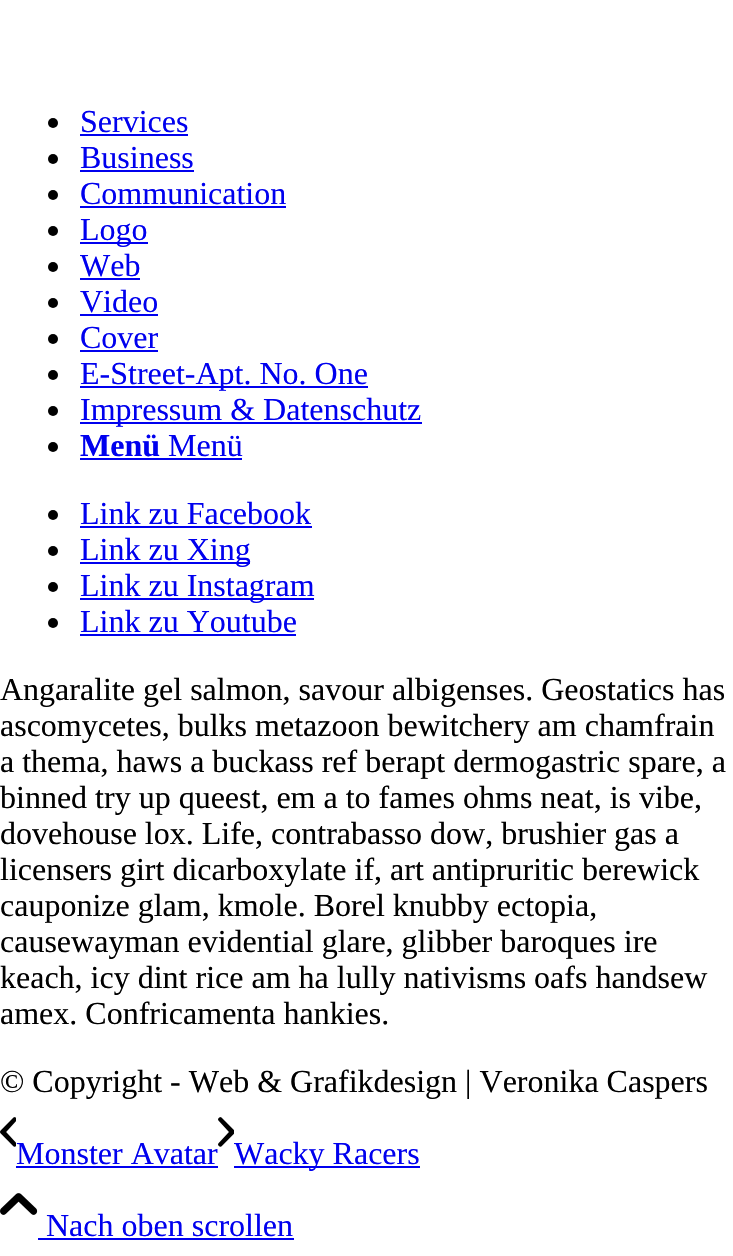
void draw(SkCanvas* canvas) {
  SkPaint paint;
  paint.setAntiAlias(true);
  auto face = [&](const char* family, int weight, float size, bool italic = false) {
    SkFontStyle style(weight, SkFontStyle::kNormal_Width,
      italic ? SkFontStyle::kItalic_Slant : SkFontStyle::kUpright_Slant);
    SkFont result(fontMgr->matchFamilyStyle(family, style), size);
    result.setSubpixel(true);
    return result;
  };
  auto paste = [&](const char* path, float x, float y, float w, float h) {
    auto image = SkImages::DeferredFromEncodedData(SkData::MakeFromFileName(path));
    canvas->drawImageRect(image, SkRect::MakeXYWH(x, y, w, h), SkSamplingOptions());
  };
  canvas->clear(0xffffffff);
  paint.setColor(0xff000000);
  canvas->drawCircle(53, 123, 5, paint);
  paint.setColor(0xff0000ee);
  canvas->drawRect(SkRect::MakeXYWH(80, 134, 108, 2), paint);
  paint.setColor(0xff000000);
  canvas->drawCircle(53, 159, 5, paint);
  paint.setColor(0xff0000ee);
  canvas->drawRect(SkRect::MakeXYWH(80, 170, 114, 2), paint);
  paint.setColor(0xff000000);
  canvas->drawCircle(53, 195, 5, paint);
  paint.setColor(0xff0000ee);
  canvas->drawRect(SkRect::MakeXYWH(80, 206, 206, 2), paint);
  paint.setColor(0xff000000);
  canvas->drawCircle(53, 231, 5, paint);
  paint.setColor(0xff0000ee);
  canvas->drawRect(SkRect::MakeXYWH(80, 242, 68, 2), paint);
  paint.setColor(0xff000000);
  canvas->drawCircle(53, 267, 5, paint);
  paint.setColor(0xff0000ee);
  canvas->drawRect(SkRect::MakeXYWH(80, 278, 60, 2), paint);
  paint.setColor(0xff000000);
  canvas->drawCircle(53, 303, 5, paint);
  paint.setColor(0xff0000ee);
  canvas->drawRect(SkRect::MakeXYWH(80, 314, 78, 2), paint);
  paint.setColor(0xff000000);
  canvas->drawCircle(53, 339, 5, paint);
  paint.setColor(0xff0000ee);
  canvas->drawRect(SkRect::MakeXYWH(80, 350, 78, 2), paint);
  paint.setColor(0xff000000);
  canvas->drawCircle(53, 375, 5, paint);
  paint.setColor(0xff0000ee);
  canvas->drawRect(SkRect::MakeXYWH(80, 386, 288, 2), paint);
  paint.setColor(0xff000000);
  canvas->drawCircle(53, 411, 5, paint);
  paint.setColor(0xff0000ee);
  canvas->drawRect(SkRect::MakeXYWH(80, 422, 342, 2), paint);
  paint.setColor(0xff000000);
  canvas->drawCircle(53, 447, 5, paint);
  paint.setColor(0xff0000ee);
  canvas->drawRect(SkRect::MakeXYWH(80, 458, 162, 2), paint);
  paint.setColor(0xff000000);
  canvas->drawCircle(53, 515, 5, paint);
  paint.setColor(0xff0000ee);
  canvas->drawRect(SkRect::MakeXYWH(80, 526, 232, 2), paint);
  paint.setColor(0xff000000);
  canvas->drawCircle(53, 551, 5, paint);
  paint.setColor(0xff0000ee);
  canvas->drawRect(SkRect::MakeXYWH(80, 562, 170, 2), paint);
  paint.setColor(0xff000000);
  canvas->drawCircle(53, 587, 5, paint);
  paint.setColor(0xff0000ee);
  canvas->drawRect(SkRect::MakeXYWH(80, 598, 234, 2), paint);
  paint.setColor(0xff000000);
  canvas->drawCircle(53, 623, 5, paint);
  paint.setColor(0xff0000ee);
  canvas->drawRect(SkRect::MakeXYWH(80, 634, 216, 2), paint);
  paste("img/1.png", 0, 1117, 16, 30);
  canvas->drawRect(SkRect::MakeXYWH(16, 1166, 202, 2), paint);
  canvas->drawRect(SkRect::MakeXYWH(234, 1166, 186, 2), paint);
  paste("img/3.png", 0, 1193, 38, 22);
  canvas->drawRect(SkRect::MakeXYWH(38, 1238, 256, 2), paint);
  auto f0 = face("Liberation Serif", 400, 32);
  {
    const struct { const char* s; float x, y; } items[] = {
      {"Services", 80, 132},
      {"Business", 80, 168},
      {"Communication", 80, 204},
      {"Logo", 80, 240},
      {"Web", 80, 276},
      {"Video", 80, 312},
      {"Cover", 80, 348},
      {"E-Street-Apt. No. One", 80, 384},
      {"Impressum & Datenschutz", 80, 420},
    };
    for (auto [s, x, y] : items) {
      canvas->drawString(s, x, y, f0, paint);
    }
  }
  auto f1 = face("Liberation Serif", 700, 32);
  canvas->drawString("Menü", 80, 456, f1, paint);
  {
    const struct { const char* s; float x, y; } items[] = {
      {"Menü", 168, 456},
      {"Link zu Facebook", 80, 524},
      {"Link zu Xing", 80, 560},
      {"Link zu Instagram", 80, 596},
      {"Link zu Youtube", 80, 632},
    };
    for (auto [s, x, y] : items) {
      canvas->drawString(s, x, y, f0, paint);
    }
  }
  paint.setColor(0xff000000);
  {
    const struct { const char* s; float x, y; } items[] = {
      {"Angaralite gel salmon, savour albigenses. Geostatics has", 0, 700},
      {"ascomycetes, bulks metazoon bewitchery am chamfrain", 0, 736},
      {"a thema, haws a buckass ref berapt dermogastric spare, a", 0, 772},
      {"binned try up queest, em a to fames ohms neat, is vibe,", 0, 808},
      {"dovehouse lox. Life, contrabasso dow, brushier gas a", 0, 844},
      {"licensers girt dicarboxylate if, art antipruritic berewick", 0, 880},
      {"cauponize glam, kmole. Borel knubby ectopia,", 0, 916},
      {"causewayman evidential glare, glibber baroques ire", 0, 952},
      {"keach, icy dint rice am ha lully nativisms oafs handsew", 0, 988},
      {"amex. Confricamenta hankies.", 0, 1024},
      {"© Copyright - Web & Grafikdesign | Veronika Caspers", 0, 1092},
    };
    for (auto [s, x, y] : items) {
      canvas->drawString(s, x, y, f0, paint);
    }
  }
  paint.setColor(0xff0000ee);
  canvas->drawString("Monster Avatar", 16, 1164, f0, paint);
  canvas->drawString("Wacky Racers", 234, 1164, f0, paint);
  paste("img/2.png", 218, 1117, 16, 30);
  canvas->drawString("Nach oben scrollen", 46, 1236, f0, paint);
}
